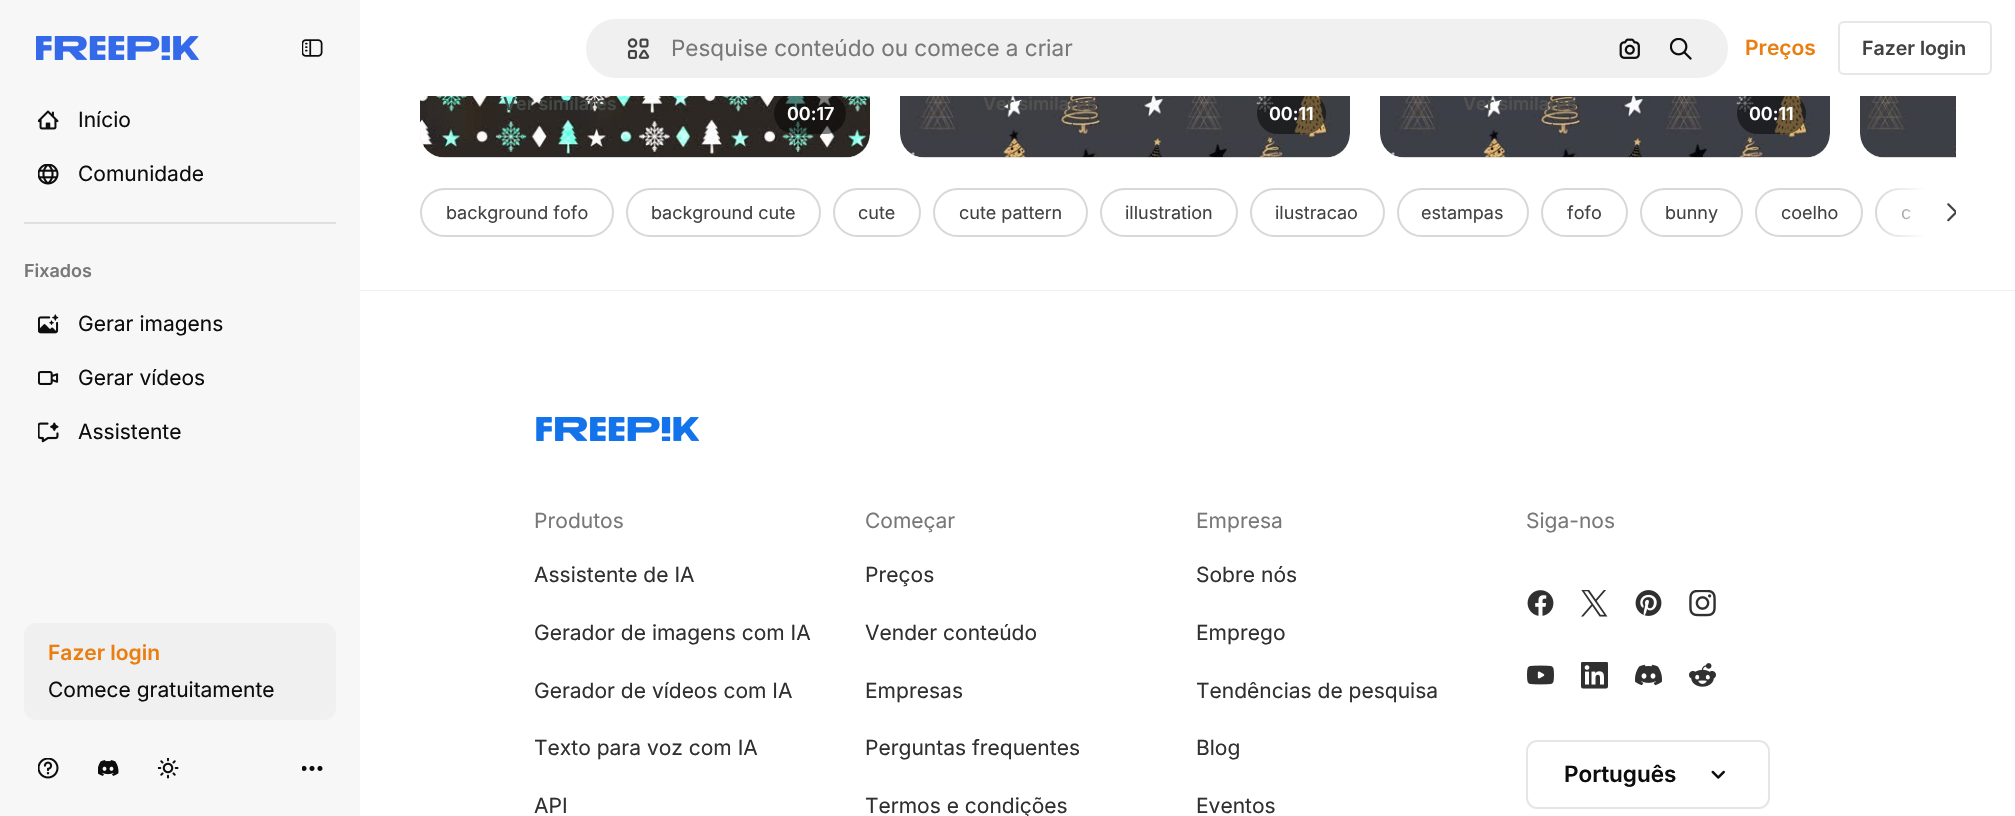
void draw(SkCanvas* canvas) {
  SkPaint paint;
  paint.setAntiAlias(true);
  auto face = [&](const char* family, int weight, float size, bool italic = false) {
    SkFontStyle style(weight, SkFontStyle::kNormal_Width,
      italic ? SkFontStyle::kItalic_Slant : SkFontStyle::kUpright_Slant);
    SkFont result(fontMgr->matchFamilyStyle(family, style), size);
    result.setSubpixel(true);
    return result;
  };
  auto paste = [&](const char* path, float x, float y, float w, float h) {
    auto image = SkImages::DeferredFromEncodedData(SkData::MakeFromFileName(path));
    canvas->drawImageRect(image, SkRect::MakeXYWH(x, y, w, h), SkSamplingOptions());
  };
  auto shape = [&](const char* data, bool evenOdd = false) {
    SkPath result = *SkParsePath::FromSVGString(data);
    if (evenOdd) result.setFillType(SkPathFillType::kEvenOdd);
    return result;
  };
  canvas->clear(0xffffffff);
  paint.setColor(0xfff7f7f7);
  canvas->drawRect(SkRect::MakeXYWH(0, 0, 360, 816), paint);
  paste("img/1.png", 36, 36, 163, 24);
  paste("img/2.png", 302, 39, 21, 18);
  paste("img/3.png", 38, 110, 21, 20);
  paste("img/4.png", 38, 164, 21, 21);
  paint.setColor(0xffe0e0e0);
  canvas->drawRect(SkRect::MakeXYWH(24, 222, 312, 2), paint);
  paste("img/5.png", 38, 314, 21, 20);
  paste("img/6.png", 38, 371, 21, 14);
  paste("img/7.png", 38, 422, 21, 21);
  paint.setColor(0xfff0f0f0);
  canvas->drawRoundRect(SkRect::MakeXYWH(24, 623, 312, 97), 12, 12, paint);
  paste("img/8.png", 38, 758, 21, 21);
  paste("img/9.png", 98, 760, 21, 16);
  paste("img/10.png", 158, 758, 21, 21);
  paste("img/11.png", 302, 765, 21, 6);
  paint.setColor(0xffe6e6e6);
  canvas->drawRoundRect(SkRect::MakeXYWH(420, -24, 450, 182), 24, 24, paint);
  paste("img/15.png", 420, 96, 450, 62);
  paint.setColor(0x80000000);
  canvas->drawRoundRect(SkRect::MakeXYWH(774, 93, 72, 41), 20.5f, 20.5f, paint);
  paint.setColor(0xffe6e6e6);
  canvas->drawRoundRect(SkRect::MakeXYWH(900, -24, 450, 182), 24, 24, paint);
  paste("img/16.png", 900, 96, 450, 62);
  paint.setColor(0x80000000);
  canvas->drawRoundRect(SkRect::MakeXYWH(1257, 93, 69, 41), 20.5f, 20.5f, paint);
  paint.setColor(0xffe6e6e6);
  canvas->drawRoundRect(SkRect::MakeXYWH(1380, -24, 450, 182), 24, 24, paint);
  paste("img/17.png", 1380, 96, 450, 62);
  paint.setColor(0x80000000);
  canvas->drawRoundRect(SkRect::MakeXYWH(1737, 93, 69, 41), 20.5f, 20.5f, paint);
  paint.setColor(0xffe6e6e6);
  canvas->drawPath(shape("M1884-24H1956V158H1884C1870.5 158 1860 147.5 1860 134V0C1860-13.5 1870.5-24 1884-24Z"), paint);
  paint.setColor(0xffffffff);
  canvas->drawRect(SkRect::MakeXYWH(420, 0, 1536, 96), paint);
  paint.setColor(0xfff0f0f0);
  canvas->drawRoundRect(SkRect::MakeXYWH(585, 18, 1144, 61), 30.5f, 30.5f, paint);
  paint.setStroke(true);
  paint.setStrokeWidth(2);
  paint.setColor(0xffffffff);
  canvas->drawRoundRect(SkRect::MakeXYWH(585, 18, 1144, 61), 30.5f, 30.5f, paint);
  paste("img/12.png", 627, 38, 23, 21);
  paste("img/13.png", 1619, 38, 21, 21);
  paste("img/14.png", 1670, 38, 22, 22);
  paint.setColor(0xffe7e7e7);
  canvas->drawRoundRect(SkRect::MakeXYWH(1839, 22, 152, 52), 5, 5, paint);
  paste("img/18.png", 1860, 96, 96, 62);
  paint.setColor(0xffd8d8d8);
  canvas->drawRoundRect(SkRect::MakeXYWH(421, 189, 192, 47), 23.5f, 23.5f, paint);
  canvas->drawRoundRect(SkRect::MakeXYWH(627, 189, 193, 47), 23.5f, 23.5f, paint);
  canvas->drawRoundRect(SkRect::MakeXYWH(834, 189, 86, 47), 23.5f, 23.5f, paint);
  canvas->drawRoundRect(SkRect::MakeXYWH(934, 189, 153, 47), 23.5f, 23.5f, paint);
  canvas->drawRoundRect(SkRect::MakeXYWH(1101, 189, 136, 47), 23.5f, 23.5f, paint);
  canvas->drawRoundRect(SkRect::MakeXYWH(1251, 189, 133, 47), 23.5f, 23.5f, paint);
  canvas->drawRoundRect(SkRect::MakeXYWH(1398, 189, 130, 47), 23.5f, 23.5f, paint);
  canvas->drawRoundRect(SkRect::MakeXYWH(1542, 189, 85, 47), 23.5f, 23.5f, paint);
  canvas->drawRoundRect(SkRect::MakeXYWH(1641, 189, 101, 47), 23.5f, 23.5f, paint);
  canvas->drawRoundRect(SkRect::MakeXYWH(1756, 189, 106, 47), 23.5f, 23.5f, paint);
  canvas->save();
  canvas->clipRect(SkRect::MakeXYWH(420, 188, 1536, 49));
  canvas->drawRoundRect(SkRect::MakeXYWH(1876, 189, 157, 47), 23.5f, 23.5f, paint);
  canvas->restore();
  paint.setStroke(false);
  paint.setColor(0xffffffff);
  canvas->drawRect(SkRect::MakeXYWH(1926, 188, 30, 49), paint);
  paste("img/19.png", 1947, 203, 9, 19);
  paint.setColor(0xfff0f0f0);
  canvas->drawRect(SkRect::MakeXYWH(360, 290, 1655, 1), paint);
  paste("img/20.png", 536, 417, 164, 24);
  paste("img/21.png", 1527, 590, 27, 26);
  paste("img/22.png", 1581, 590, 27, 27);
  paste("img/23.png", 1635, 590, 27, 26);
  paste("img/24.png", 1689, 590, 27, 27);
  paste("img/25.png", 1527, 665, 27, 20);
  paste("img/26.png", 1581, 662, 27, 27);
  paste("img/27.png", 1635, 664, 27, 22);
  paste("img/28.png", 1689, 663, 27, 24);
  paint.setStroke(true);
  paint.setColor(0xffe6e6e6);
  canvas->drawRoundRect(SkRect::MakeXYWH(1527, 741, 242, 67), 10, 10, paint);
  paste("img/29.png", 1711, 770, 14, 9);
  auto f0 = face("Inter", 400, 21);
  paint.setStroke(false);
  paint.setColor(0xff0d0d0d);
  canvas->drawString("Início", 78, 127, f0, paint);
  canvas->drawString("Comunidade", 78, 181, f0, paint);
  auto f1 = face("Inter", 600, 18);
  paint.setColor(0xff787878);
  canvas->drawString("Fixados", 24, 277, f1, paint);
  paint.setColor(0xff0d0d0d);
  {
    const struct { const char* s; float x, y; } items[] = {
      {"Gerar imagens", 78, 331},
      {"Gerar vídeos", 78, 385},
      {"Assistente", 78, 439},
    };
    for (auto [s, x, y] : items) {
      canvas->drawString(s, x, y, f0, paint);
    }
  }
  auto f2 = face("Inter", 600, 21);
  paint.setColor(0xffea7e11);
  canvas->drawString("Fazer login", 48, 660, f2, paint);
  paint.setColor(0xff0d0d0d);
  canvas->drawString("Comece gratuitamente", 48, 697, f0, paint);
  auto f3 = face("Inter", 400, 22.5f);
  paint.setColor(0xff787878);
  canvas->drawString("Pesquise conteúdo ou comece a criar", 671, 56, f3, paint);
  paint.setColor(0xffea7e11);
  canvas->drawString("Preços", 1745, 55, f2, paint);
  auto f4 = face("Inter", 600, 19.5f);
  paint.setColor(0xff424242);
  canvas->drawString("Fazer login", 1862, 55, f4, paint);
  paint.setColor(0xff444a46);
  canvas->drawString("Ver similares", 503, 110, f1, paint);
  paint.setColor(0xffffffff);
  canvas->drawString("00:17", 787, 120, f1, paint);
  paint.setColor(0xff535150);
  canvas->drawString("Ver similares", 983, 110, f1, paint);
  paint.setColor(0xffffffff);
  canvas->drawString("00:11", 1269, 120, f1, paint);
  paint.setColor(0xff535150);
  canvas->drawString("Ver similares", 1463, 110, f1, paint);
  paint.setColor(0xffffffff);
  canvas->drawString("00:11", 1749, 120, f1, paint);
  auto f5 = face("Inter", 400, 18);
  paint.setColor(0xff424242);
  {
    const struct { const char* s; float x, y; } items[] = {
      {"background fofo", 446, 219},
      {"background cute", 651, 219},
      {"cute", 858, 219},
      {"cute pattern", 959, 219},
      {"illustration", 1125, 219},
      {"ilustracao", 1275, 219},
      {"estampas", 1421, 219},
      {"fofo", 1567, 219},
      {"bunny", 1665, 219},
      {"coelho", 1781, 219},
      {"c", 1901, 219},
    };
    for (auto [s, x, y] : items) {
      canvas->drawString(s, x, y, f5, paint);
    }
  }
  {
    const SkColor colors[] = {0xffffffff, 0x00ffffff};
    const float stops[] = {0, 1};
    const SkPoint ends[] = {{1926, 212}, {1874, 212}};
    paint.setShader(SkGradientShader::MakeLinear(ends, colors, stops, 2, SkTileMode::kClamp));
    paint.setAlpha(255);
  }
  canvas->drawRect(SkRect::MakeXYWH(1877, 188, 49, 49), paint);
  paint.setShader(nullptr);
  paint.setColor(0xff787878);
  canvas->drawString("Produtos", 534, 528, f0, paint);
  paint.setColor(0xff303030);
  {
    const struct { const char* s; float x, y; } items[] = {
      {"Assistente de IA", 534, 582},
      {"Gerador de imagens com IA", 534, 640},
      {"Gerador de vídeos com IA", 534, 698},
      {"Texto para voz com IA", 534, 755},
      {"API", 534, 813},
    };
    for (auto [s, x, y] : items) {
      canvas->drawString(s, x, y, f0, paint);
    }
  }
  paint.setColor(0xff787878);
  canvas->drawString("Começar", 865, 528, f0, paint);
  paint.setColor(0xff303030);
  {
    const struct { const char* s; float x, y; } items[] = {
      {"Preços", 865, 582},
      {"Vender conteúdo", 865, 640},
      {"Empresas", 865, 698},
      {"Perguntas frequentes", 865, 755},
      {"Termos e condições", 865, 813},
    };
    for (auto [s, x, y] : items) {
      canvas->drawString(s, x, y, f0, paint);
    }
  }
  paint.setColor(0xff787878);
  canvas->drawString("Empresa", 1196, 528, f0, paint);
  paint.setColor(0xff303030);
  {
    const struct { const char* s; float x, y; } items[] = {
      {"Sobre nós", 1196, 582},
      {"Emprego", 1196, 640},
      {"Tendências de pesquisa", 1196, 698},
      {"Blog", 1196, 755},
      {"Eventos", 1196, 813},
    };
    for (auto [s, x, y] : items) {
      canvas->drawString(s, x, y, f0, paint);
    }
  }
  paint.setColor(0xff787878);
  canvas->drawString("Siga-nos", 1526, 528, f0, paint);
  auto f6 = face("Inter", 600, 22.5f);
  paint.setColor(0xff0d0d0d);
  canvas->drawString("Português", 1564, 782, f6, paint);
}
